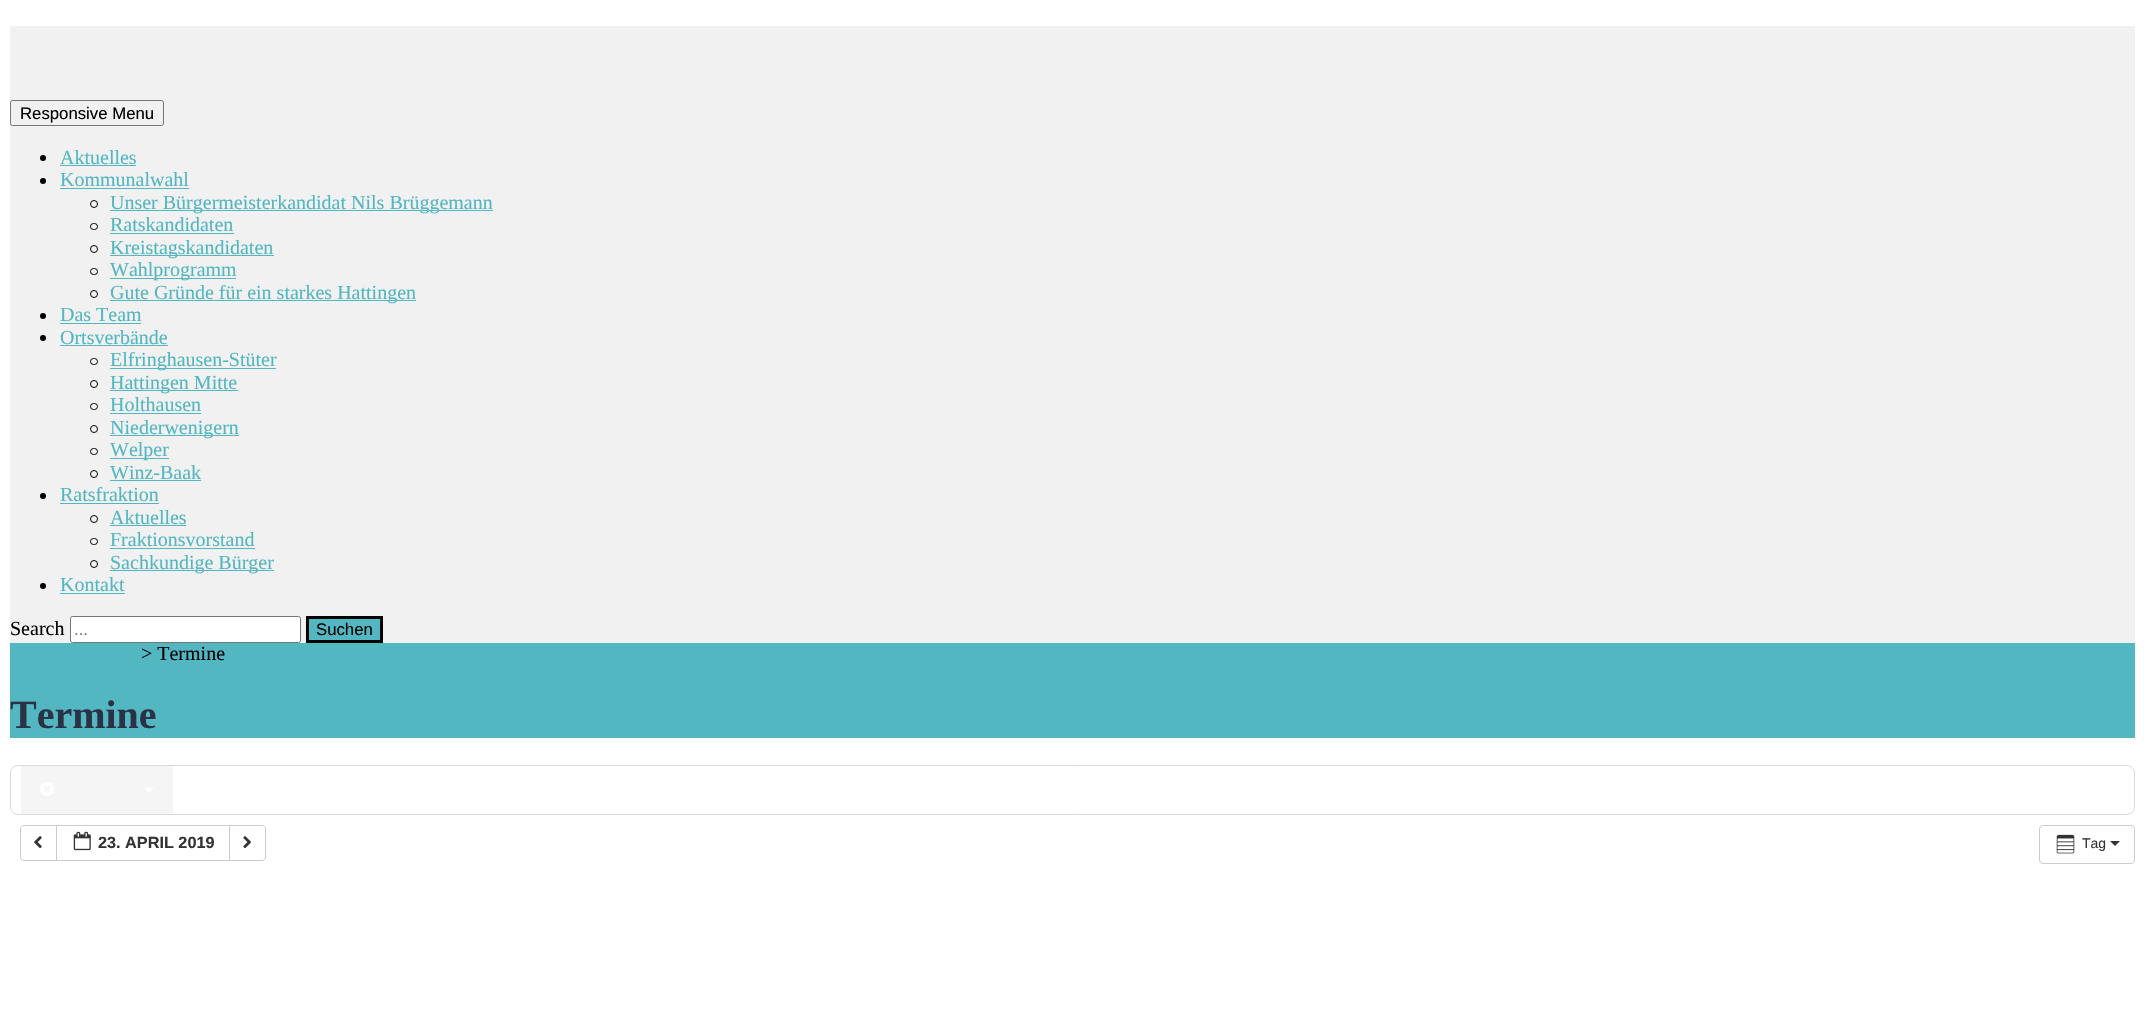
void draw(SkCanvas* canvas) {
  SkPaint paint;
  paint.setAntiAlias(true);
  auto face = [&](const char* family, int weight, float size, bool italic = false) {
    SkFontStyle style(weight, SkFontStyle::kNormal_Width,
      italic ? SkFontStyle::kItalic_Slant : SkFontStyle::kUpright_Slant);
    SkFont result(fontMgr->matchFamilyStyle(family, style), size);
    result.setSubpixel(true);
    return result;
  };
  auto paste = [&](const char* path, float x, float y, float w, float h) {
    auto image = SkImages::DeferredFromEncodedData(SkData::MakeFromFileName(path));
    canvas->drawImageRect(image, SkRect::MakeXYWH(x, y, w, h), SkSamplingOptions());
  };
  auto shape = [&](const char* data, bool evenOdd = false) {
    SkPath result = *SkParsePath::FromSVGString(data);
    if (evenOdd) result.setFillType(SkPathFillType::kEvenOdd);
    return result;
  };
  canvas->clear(0xffffffff);
  paint.setColor(0xfff1f1f1);
  canvas->drawRect(SkRect::MakeXYWH(10, 26, 2125, 617), paint);
  paint.setStroke(true);
  paint.setStrokeWidth(1);
  paint.setColor(0xff767676);
  canvas->drawRoundRect(SkRect::MakeXYWH(10.5f, 100.5f, 153, 25), 2, 2, paint);
  paint.setStroke(false);
  paint.setColor(0xff000000);
  canvas->drawCircle(43, 158, 3, paint);
  paint.setColor(0xff52b7c1);
  canvas->drawRect(SkRect::MakeXYWH(60, 165, 76, 1), paint);
  paint.setColor(0xff000000);
  canvas->drawCircle(43, 181, 3, paint);
  paint.setColor(0xff52b7c1);
  canvas->drawRect(SkRect::MakeXYWH(60, 188, 129, 1), paint);
  paint.setStroke(true);
  paint.setColor(0xff000000);
  canvas->drawCircle(94, 204, 3.5f, paint);
  paint.setStroke(false);
  paint.setColor(0xff52b7c1);
  canvas->drawRect(SkRect::MakeXYWH(110, 210, 383, 1), paint);
  paint.setStroke(true);
  paint.setColor(0xff000000);
  canvas->drawRoundRect(SkRect::MakeXYWH(90.5f, 223.5f, 7, 6), 3, 3, paint);
  paint.setStroke(false);
  paint.setColor(0xff52b7c1);
  canvas->drawRect(SkRect::MakeXYWH(110, 233, 124, 1), paint);
  paint.setStroke(true);
  paint.setColor(0xff000000);
  canvas->drawCircle(94, 249, 3.5f, paint);
  paint.setStroke(false);
  paint.setColor(0xff52b7c1);
  canvas->drawRect(SkRect::MakeXYWH(110, 255, 164, 1), paint);
  paint.setStroke(true);
  paint.setColor(0xff000000);
  canvas->drawRoundRect(SkRect::MakeXYWH(90.5f, 268.5f, 7, 6), 3, 3, paint);
  paint.setStroke(false);
  paint.setColor(0xff52b7c1);
  canvas->drawRect(SkRect::MakeXYWH(110, 278, 126, 1), paint);
  paint.setStroke(true);
  paint.setColor(0xff000000);
  canvas->drawCircle(94, 294, 3.5f, paint);
  paint.setStroke(false);
  paint.setColor(0xff52b7c1);
  canvas->drawRect(SkRect::MakeXYWH(110, 300, 306, 1), paint);
  paint.setColor(0xff000000);
  canvas->drawCircle(43, 316, 3, paint);
  paint.setColor(0xff52b7c1);
  canvas->drawRect(SkRect::MakeXYWH(60, 323, 81, 1), paint);
  paint.setColor(0xff000000);
  canvas->drawCircle(43, 338, 3, paint);
  paint.setColor(0xff52b7c1);
  canvas->drawRect(SkRect::MakeXYWH(60, 345, 108, 1), paint);
  paint.setStroke(true);
  paint.setColor(0xff000000);
  canvas->drawRoundRect(SkRect::MakeXYWH(90.5f, 358.5f, 7, 6), 3, 3, paint);
  paint.setStroke(false);
  paint.setColor(0xff52b7c1);
  canvas->drawRect(SkRect::MakeXYWH(110, 368, 166, 1), paint);
  paint.setStroke(true);
  paint.setColor(0xff000000);
  canvas->drawCircle(94, 384, 3.5f, paint);
  paint.setStroke(false);
  paint.setColor(0xff52b7c1);
  canvas->drawRect(SkRect::MakeXYWH(110, 390, 128, 1), paint);
  paint.setStroke(true);
  paint.setColor(0xff000000);
  canvas->drawRoundRect(SkRect::MakeXYWH(90.5f, 403.5f, 7, 6), 3, 3, paint);
  paint.setStroke(false);
  paint.setColor(0xff52b7c1);
  canvas->drawRect(SkRect::MakeXYWH(110, 413, 91, 1), paint);
  paint.setStroke(true);
  paint.setColor(0xff000000);
  canvas->drawCircle(94, 429, 3.5f, paint);
  paint.setStroke(false);
  paint.setColor(0xff52b7c1);
  canvas->drawRect(SkRect::MakeXYWH(110, 435, 129, 1), paint);
  paint.setStroke(true);
  paint.setColor(0xff000000);
  canvas->drawRoundRect(SkRect::MakeXYWH(90.5f, 448.5f, 7, 6), 3, 3, paint);
  paint.setStroke(false);
  paint.setColor(0xff52b7c1);
  canvas->drawRect(SkRect::MakeXYWH(110, 458, 59, 1), paint);
  paint.setStroke(true);
  paint.setColor(0xff000000);
  canvas->drawCircle(94, 474, 3.5f, paint);
  paint.setStroke(false);
  paint.setColor(0xff52b7c1);
  canvas->drawRect(SkRect::MakeXYWH(110, 480, 91, 1), paint);
  paint.setColor(0xff000000);
  canvas->drawCircle(43, 496, 3, paint);
  paint.setColor(0xff52b7c1);
  canvas->drawRect(SkRect::MakeXYWH(60, 503, 99, 1), paint);
  paint.setStroke(true);
  paint.setColor(0xff000000);
  canvas->drawCircle(94, 519, 3.5f, paint);
  paint.setStroke(false);
  paint.setColor(0xff52b7c1);
  canvas->drawRect(SkRect::MakeXYWH(110, 525, 76, 1), paint);
  paint.setStroke(true);
  paint.setColor(0xff000000);
  canvas->drawRoundRect(SkRect::MakeXYWH(90.5f, 538.5f, 7, 6), 3, 3, paint);
  paint.setStroke(false);
  paint.setColor(0xff52b7c1);
  canvas->drawRect(SkRect::MakeXYWH(110, 548, 145, 1), paint);
  paint.setStroke(true);
  paint.setColor(0xff000000);
  canvas->drawCircle(94, 564, 3.5f, paint);
  paint.setStroke(false);
  paint.setColor(0xff52b7c1);
  canvas->drawRect(SkRect::MakeXYWH(110, 570, 164, 1), paint);
  paint.setColor(0xff000000);
  canvas->drawCircle(43, 586, 3, paint);
  paint.setColor(0xff52b7c1);
  canvas->drawRect(SkRect::MakeXYWH(60, 593, 65, 1), paint);
  paint.setColor(0xffffffff);
  canvas->drawRoundRect(SkRect::MakeXYWH(70.5f, 616.5f, 230, 26), 2, 2, paint);
  paint.setStroke(true);
  paint.setColor(0xff767676);
  canvas->drawRoundRect(SkRect::MakeXYWH(70.5f, 616.5f, 230, 26), 2, 2, paint);
  paint.setStroke(false);
  paint.setColor(0xff52b7c1);
  canvas->drawRect(SkRect::MakeXYWH(307.5f, 617.5f, 74, 24), paint);
  paint.setStroke(true);
  paint.setStrokeWidth(3);
  paint.setColor(0xff000000);
  canvas->drawRect(SkRect::MakeXYWH(307.5f, 617.5f, 74, 24), paint);
  paint.setStroke(false);
  paint.setColor(0xff52b7c1);
  canvas->drawRect(SkRect::MakeXYWH(10, 643, 2125, 95), paint);
  paint.setStroke(true);
  paint.setStrokeWidth(1);
  paint.setColor(0xffdbdbdb);
  canvas->drawRoundRect(SkRect::MakeXYWH(10.5f, 765.5f, 2124, 49), 7.5f, 7.5f, paint);
  paint.setStroke(false);
  paint.setColor(0xfff5f5f5);
  canvas->drawRect(SkRect::MakeXYWH(21, 766, 152, 48), paint);
  paste("img/1.png", 40, 782, 14, 14);
  paint.setColor(0xffffffff);
  canvas->drawPath(shape("M144 787.5H154L149 792.5Z"), paint);
  paint.setStroke(true);
  paint.setColor(0xffcccccc);
  canvas->drawPath(shape("M24 825.5H57.5V860.5H24C22 860.5 20.5 859 20.5 857V829C20.5 827 22 825.5 24 825.5Z"), paint);
  paste("img/2.png", 34, 836, 8, 12);
  paint.setStroke(false);
  paint.setColor(0xffffffff);
  canvas->drawRect(SkRect::MakeXYWH(57, 826, 1, 34), paint);
  paint.setStroke(true);
  paint.setColor(0xffcccccc);
  canvas->drawRect(SkRect::MakeXYWH(56.5f, 825.5f, 173, 35), paint);
  paste("img/3.png", 73, 831, 18, 20);
  paint.setStroke(false);
  paint.setColor(0xffffffff);
  canvas->drawPath(shape("M229.5 825.5H262C264 825.5 265.5 827 265.5 829V857C265.5 859 264 860.5 262 860.5H229.5Z"), paint);
  paint.setStroke(true);
  paint.setColor(0xffcccccc);
  canvas->drawPath(shape("M229.5 825.5H262C264 825.5 265.5 827 265.5 829V857C265.5 859 264 860.5 262 860.5H229.5Z"), paint);
  paste("img/4.png", 243, 836, 8, 12);
  canvas->drawRoundRect(SkRect::MakeXYWH(2039.5f, 825.5f, 95, 38), 3.5f, 3.5f, paint);
  paste("img/5.png", 2056, 834, 19, 20);
  paint.setStroke(false);
  paint.setColor(0xff333333);
  canvas->drawPath(shape("M2110 841H2120L2115 846Z"), paint);
  auto f0 = face("Liberation Sans", 400, 16.75f);
  paint.setColor(0xff000000);
  canvas->drawString("Responsive Menu", 20, 119, f0, paint);
  auto f1 = face("Liberation Serif", 400, 20);
  paint.setColor(0xff52b7c1);
  {
    const struct { const char* s; float x, y; } items[] = {
      {"Aktuelles", 60, 164},
      {"Kommunalwahl", 60, 186},
      {"Unser Bürgermeisterkandidat Nils Brüggemann", 110, 209},
      {"Ratskandidaten", 110, 231},
      {"Kreistagskandidaten", 110, 254},
      {"Wahlprogramm", 110, 276},
      {"Gute Gründe für ein starkes Hattingen", 110, 299},
      {"Das Team", 60, 321},
      {"Ortsverbände", 60, 344},
      {"Elfringhausen-Stüter", 110, 366},
      {"Hattingen Mitte", 110, 389},
      {"Holthausen", 110, 411},
      {"Niederwenigern", 110, 434},
      {"Welper", 110, 456},
      {"Winz-Baak", 110, 479},
      {"Ratsfraktion", 60, 501},
      {"Aktuelles", 110, 524},
      {"Fraktionsvorstand", 110, 546},
      {"Sachkundige Bürger", 110, 569},
      {"Kontakt", 60, 591},
    };
    for (auto [s, x, y] : items) {
      canvas->drawString(s, x, y, f1, paint);
    }
  }
  paint.setColor(0xff000000);
  canvas->drawString("Search", 10, 635, f1, paint);
  paint.setColor(0xff757575);
  canvas->drawString("...", 74, 635, f0, paint);
  paint.setColor(0xff000000);
  canvas->drawString("Suchen", 316, 635, f0, paint);
  canvas->drawString("> Termine", 141, 660, f1, paint);
  auto f2 = face("Liberation Serif", 700, 40);
  paint.setColor(0xff2b3246);
  canvas->drawString("Termine", 10, 728, f2, paint);
  auto f3 = face("Liberation Sans", 700, 16.25f);
  paint.setColor(0xff333333);
  canvas->drawString("23. APRIL 2019", 98, 848, f3, paint);
  auto f4 = face("Liberation Sans", 400, 14);
  canvas->drawString("Tag", 2082, 848, f4, paint);
}
